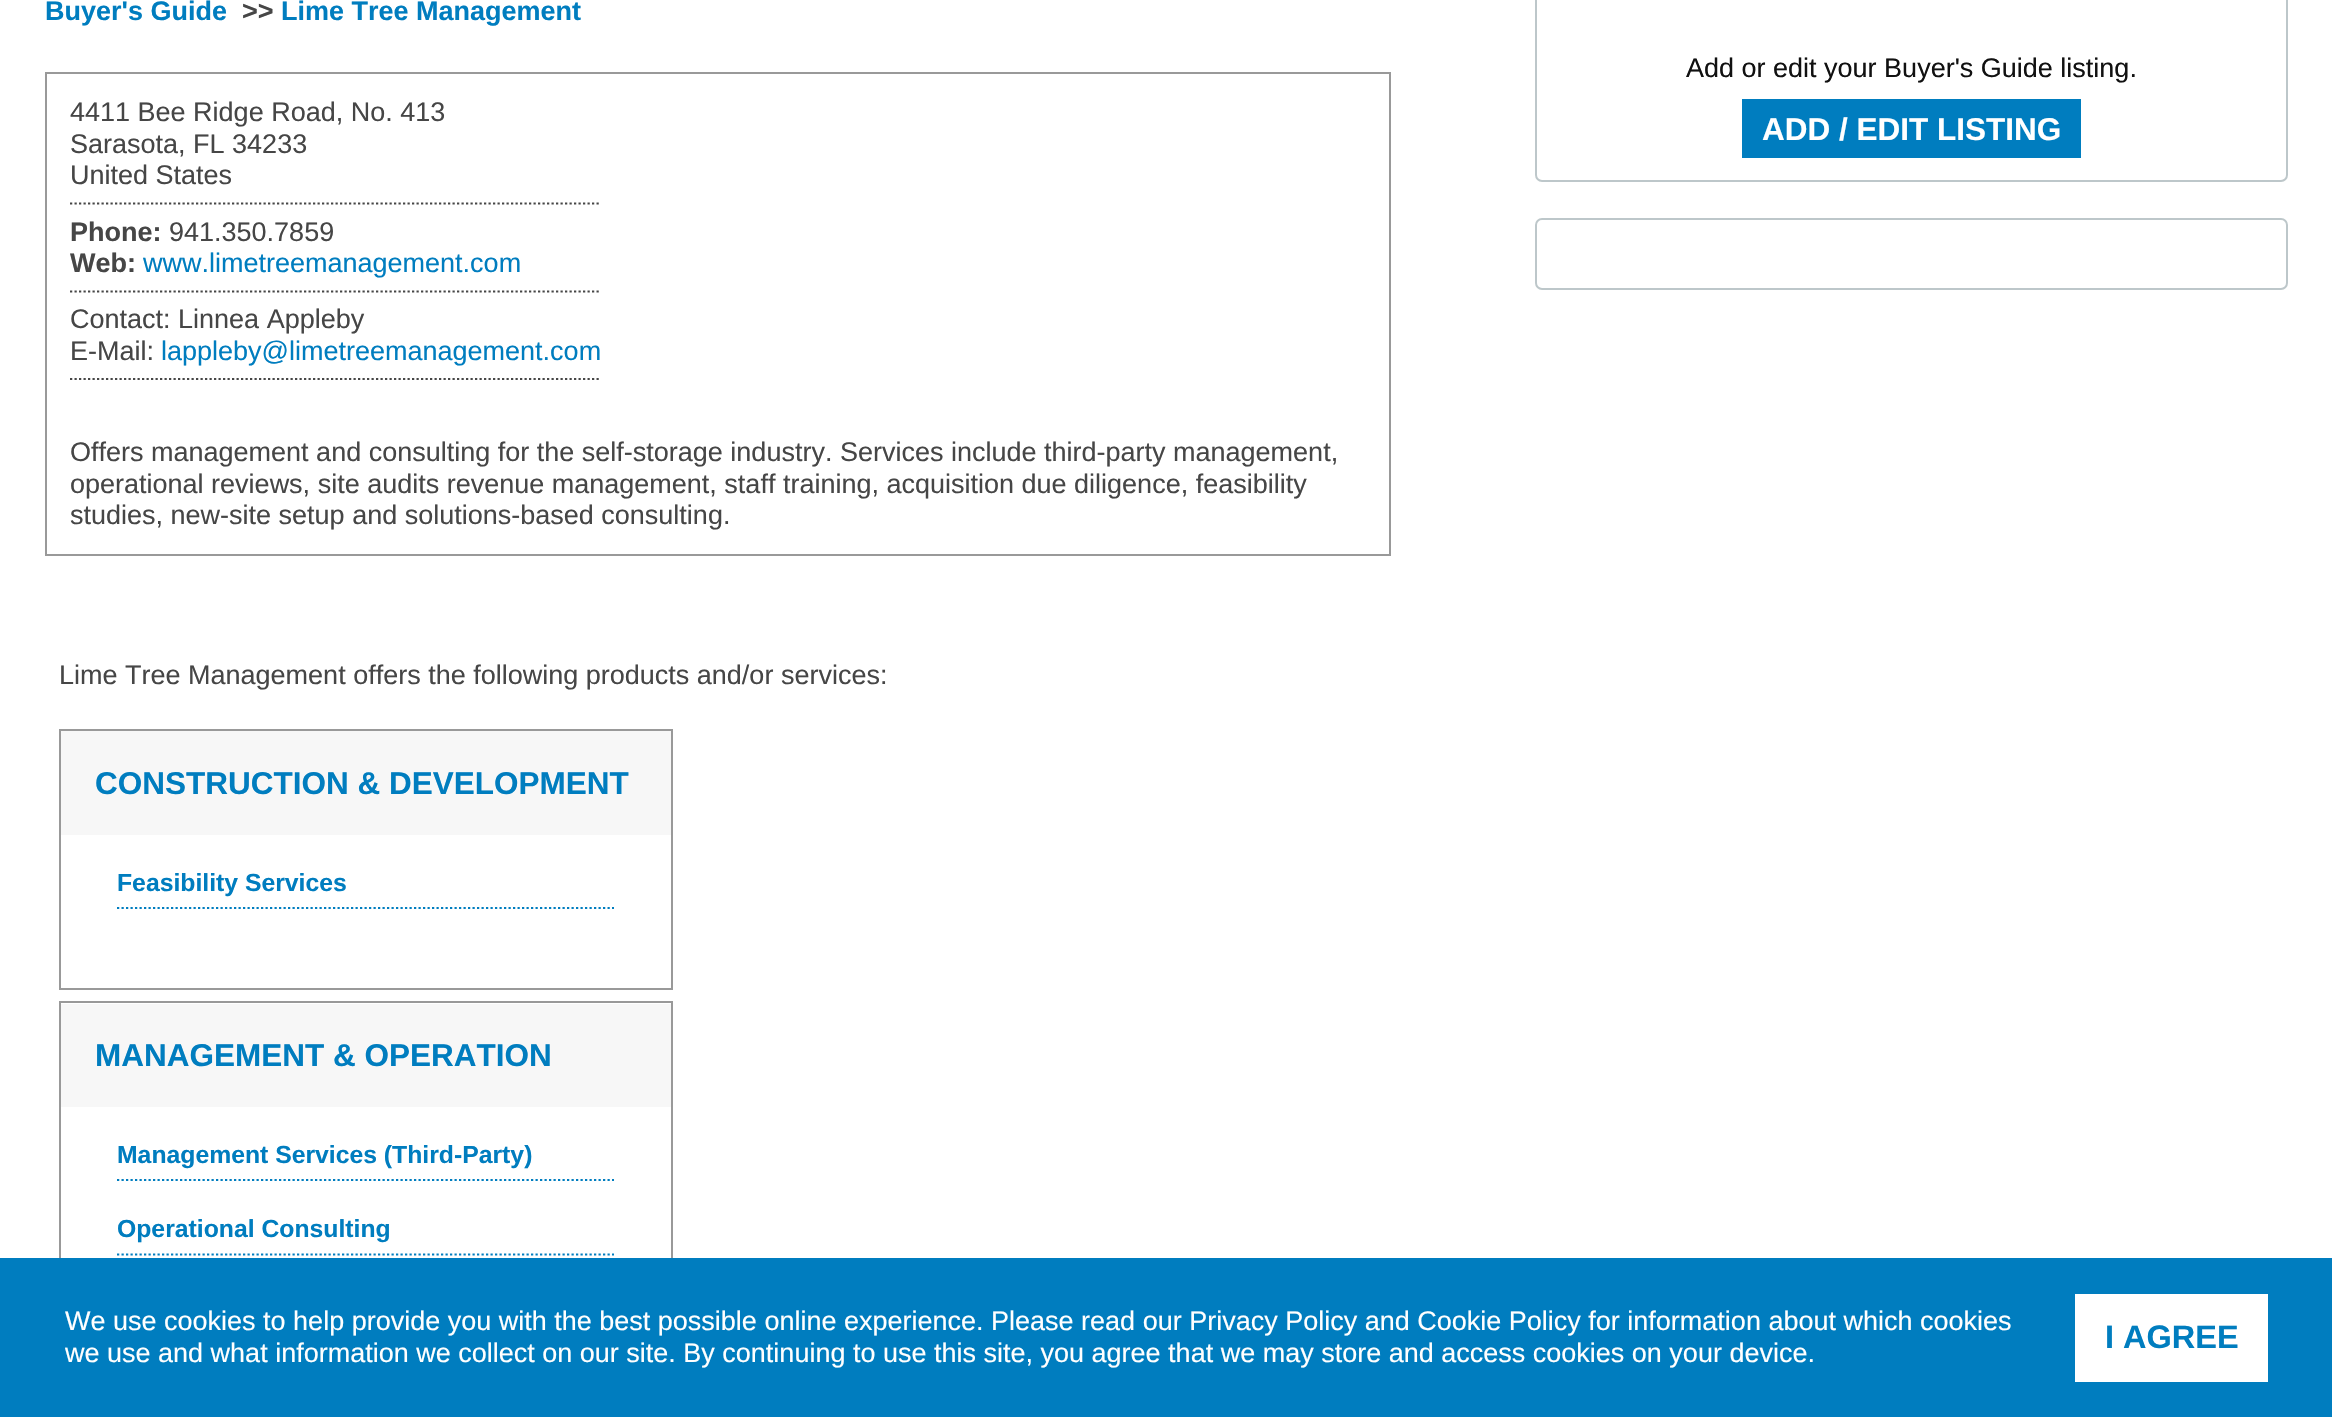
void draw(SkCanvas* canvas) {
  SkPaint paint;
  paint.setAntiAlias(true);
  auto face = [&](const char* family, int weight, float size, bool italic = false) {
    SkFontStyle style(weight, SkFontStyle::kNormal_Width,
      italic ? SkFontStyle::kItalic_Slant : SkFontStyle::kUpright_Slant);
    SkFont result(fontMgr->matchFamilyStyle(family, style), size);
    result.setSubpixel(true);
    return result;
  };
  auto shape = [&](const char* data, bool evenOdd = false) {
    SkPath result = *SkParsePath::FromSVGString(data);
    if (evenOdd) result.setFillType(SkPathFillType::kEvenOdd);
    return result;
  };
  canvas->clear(0xffffffff);
  paint.setStroke(true);
  paint.setStrokeWidth(2);
  paint.setColor(0xff999999);
  canvas->drawRect(SkRect::MakeXYWH(46, 73, 1344, 482), paint);
  paint.setStrokeWidth(2.2f);
  paint.setColor(0xff464646);
  paint.setPathEffect(SkDashPathEffect::Make({{2.25f, 2.25f}}, 0));
  canvas->drawPath(shape("M70 203.5H601"), paint);
  paint.setPathEffect(nullptr);
  paint.setPathEffect(SkDashPathEffect::Make({{2.25f, 2.25f}}, 0));
  canvas->drawPath(shape("M70 291.5H601"), paint);
  paint.setPathEffect(nullptr);
  paint.setPathEffect(SkDashPathEffect::Make({{2.25f, 2.25f}}, 0));
  canvas->drawPath(shape("M70 379H601"), paint);
  paint.setPathEffect(nullptr);
  paint.setStrokeWidth(2);
  paint.setColor(0xff999999);
  canvas->drawRect(SkRect::MakeXYWH(60, 730, 612, 259), paint);
  paint.setStroke(false);
  paint.setColor(0xfff7f7f7);
  canvas->drawRect(SkRect::MakeXYWH(61, 731, 610, 104), paint);
  paint.setStroke(true);
  paint.setStrokeWidth(2.2f);
  paint.setColor(0xff007dbf);
  paint.setPathEffect(SkDashPathEffect::Make({{2.25f, 2.25f}}, 0));
  canvas->drawPath(shape("M117 908H614"), paint);
  paint.setPathEffect(nullptr);
  paint.setStrokeWidth(2);
  paint.setColor(0xff999999);
  canvas->drawRect(SkRect::MakeXYWH(60, 1002, 612, 334), paint);
  paint.setStroke(false);
  paint.setColor(0xfff7f7f7);
  canvas->drawRect(SkRect::MakeXYWH(61, 1004, 610, 103), paint);
  paint.setStroke(true);
  paint.setStrokeWidth(2.2f);
  paint.setColor(0xff007dbf);
  paint.setPathEffect(SkDashPathEffect::Make({{2.25f, 2.25f}}, 0));
  canvas->drawPath(shape("M117 1180H614"), paint);
  paint.setPathEffect(nullptr);
  paint.setPathEffect(SkDashPathEffect::Make({{2.25f, 2.25f}}, 0));
  canvas->drawPath(shape("M117 1254.5H614"), paint);
  paint.setPathEffect(nullptr);
  paint.setStrokeWidth(2);
  paint.setColor(0xffbdc7ca);
  canvas->drawRoundRect(SkRect::MakeXYWH(1536, -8, 751, 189), 6, 6, paint);
  paint.setStroke(false);
  paint.setColor(0xff007dbf);
  canvas->drawRect(SkRect::MakeXYWH(1742, 99, 339, 59), paint);
  paint.setStroke(true);
  paint.setColor(0xffbdc7ca);
  canvas->drawRoundRect(SkRect::MakeXYWH(1536, 219, 751, 70), 6, 6, paint);
  paint.setStroke(false);
  paint.setColor(0xff007dbf);
  canvas->drawRect(SkRect::MakeXYWH(0, 1258, 2332, 159), paint);
  paint.setColor(0xffffffff);
  canvas->drawRect(SkRect::MakeXYWH(2075, 1294, 193, 88), paint);
  auto f0 = face("Liberation Sans", 700, 27);
  paint.setColor(0xff007dbf);
  canvas->drawString("Buyer's Guide", 45, 20, f0, paint);
  paint.setColor(0xff464646);
  canvas->drawString(">>", 242, 20, f0, paint);
  paint.setColor(0xff007dbf);
  canvas->drawString("Lime Tree Management", 281, 20, f0, paint);
  auto f1 = face("Liberation Sans", 400, 27);
  paint.setColor(0xff464646);
  {
    const struct { const char* s; float x, y; } items[] = {
      {"4411 Bee Ridge Road, No. 413", 70, 121},
      {"Sarasota, FL 34233", 70, 153},
      {"United States", 70, 184},
    };
    for (auto [s, x, y] : items) {
      canvas->drawString(s, x, y, f1, paint);
    }
  }
  canvas->drawString("Phone:", 70, 241, f0, paint);
  canvas->drawString("941.350.7859", 169, 241, f1, paint);
  canvas->drawString("Web:", 70, 272, f0, paint);
  paint.setColor(0xff007dbf);
  canvas->drawString("www.limetreemanagement.com", 143, 272, f1, paint);
  paint.setColor(0xff464646);
  canvas->drawString("Contact: Linnea Appleby", 70, 328, f1, paint);
  canvas->drawString("E-Mail:", 70, 360, f1, paint);
  paint.setColor(0xff007dbf);
  canvas->drawString("lappleby@limetreemanagement.com", 161, 360, f1, paint);
  paint.setColor(0xff464646);
  {
    const struct { const char* s; float x, y; } items[] = {
      {"Offers management and consulting for the self-storage industry. Services include third-party management,", 70, 461},
      {"operational reviews, site audits revenue management, staff training, acquisition due diligence, feasibility", 70, 493},
      {"studies, new-site setup and solutions-based consulting.", 70, 524},
      {"Lime Tree Management offers the following products and/or services:", 59, 684},
    };
    for (auto [s, x, y] : items) {
      canvas->drawString(s, x, y, f1, paint);
    }
  }
  auto f2 = face("Liberation Sans", 700, 31.5f);
  paint.setColor(0xff007dbf);
  canvas->drawString("CONSTRUCTION & DEVELOPMENT", 95, 794, f2, paint);
  auto f3 = face("Liberation Sans", 700, 24.75f);
  canvas->drawString("Feasibility Services", 117, 891, f3, paint);
  canvas->drawString("MANAGEMENT & OPERATION", 95, 1066, f2, paint);
  canvas->drawString("Management Services (Third-Party)", 117, 1163, f3, paint);
  canvas->drawString("Operational Consulting", 117, 1237, f3, paint);
  paint.setColor(0xff111111);
  canvas->drawString("Add or edit your Buyer's Guide listing.", 1686, 77, f1, paint);
  paint.setColor(0xffffffff);
  canvas->drawString("ADD / EDIT LISTING", 1762, 140, f2, paint);
  canvas->drawString("We use cookies to help provide you with the best possible online experience. Please read our Privacy Policy and Cookie Policy for information about which cookies", 65, 1330, f1, paint);
  canvas->drawString("we use and what information we collect on our site. By continuing to use this site, you agree that we may store and access cookies on your device.", 65, 1362, f1, paint);
  auto f4 = face("Liberation Sans", 700, 32.5f);
  paint.setColor(0xff007dbf);
  canvas->drawString("I AGREE", 2105, 1348, f4, paint);
}
